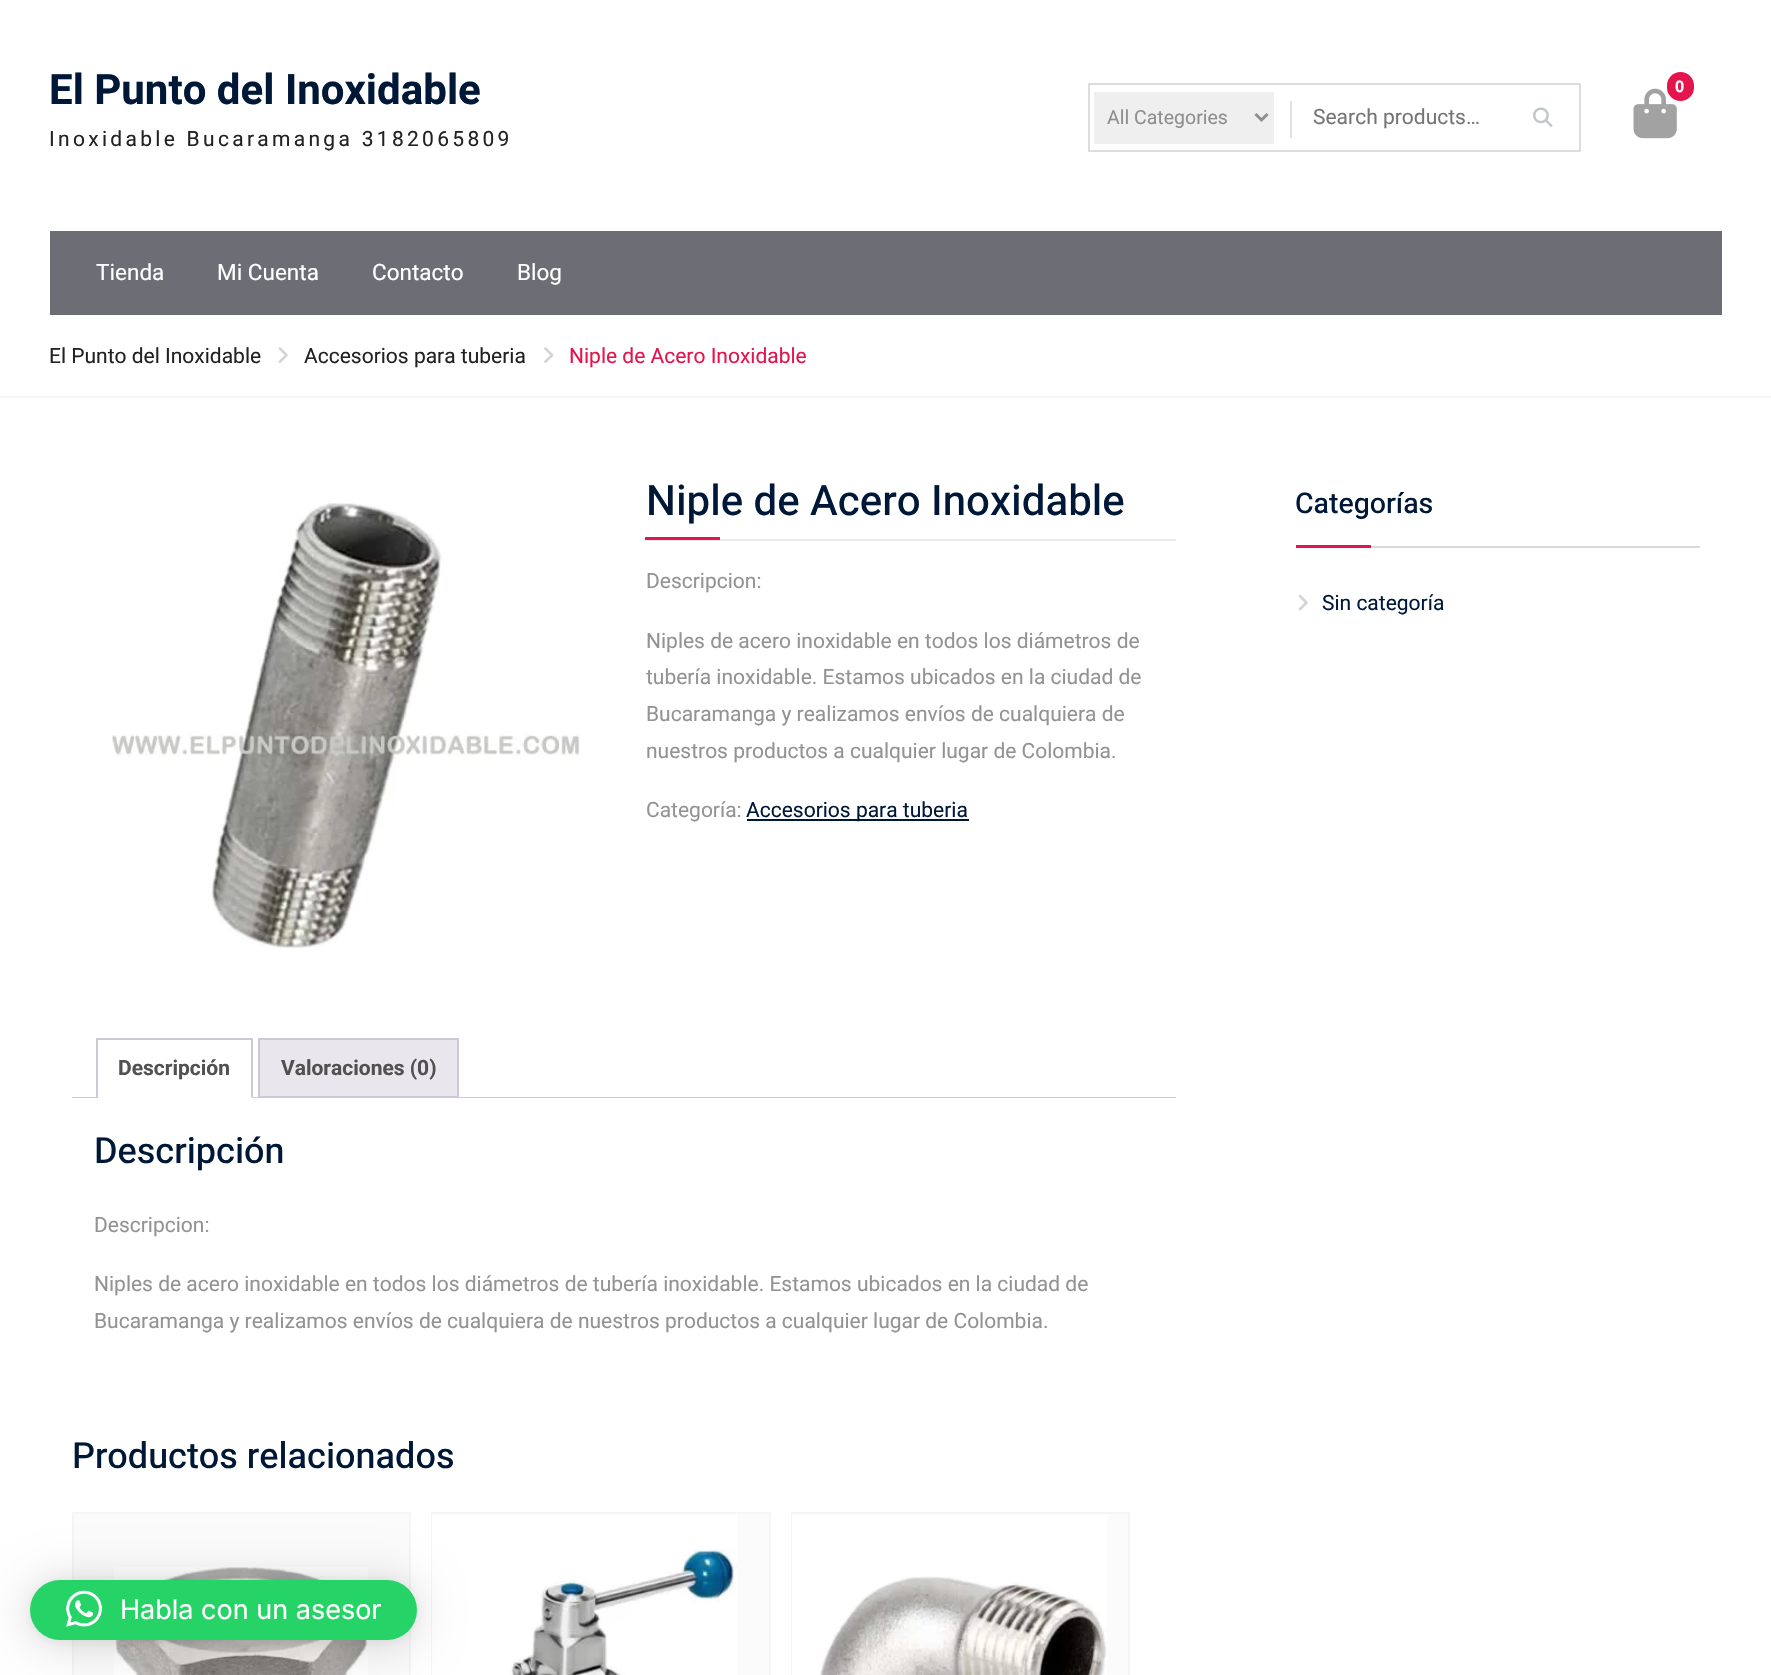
void draw(SkCanvas* canvas) {
  SkPaint paint;
  paint.setAntiAlias(true);
  auto face = [&](const char* family, int weight, float size, bool italic = false) {
    SkFontStyle style(weight, SkFontStyle::kNormal_Width,
      italic ? SkFontStyle::kItalic_Slant : SkFontStyle::kUpright_Slant);
    SkFont result(fontMgr->matchFamilyStyle(family, style), size);
    result.setSubpixel(true);
    return result;
  };
  auto writeSpaced = [&](const char* s, float x, float y, const SkFont& font, const SkPaint& ink, float letter, float word) {
    std::vector<SkGlyphID> glyphs(font.countText(s, strlen(s), SkTextEncoding::kUTF8));
    std::vector<float> xs(glyphs.size());
    font.textToGlyphs(s, strlen(s), SkTextEncoding::kUTF8, glyphs);
    font.getXPos(glyphs, xs, x);
    float extra = 0;
    for (size_t i = 0; i < glyphs.size(); i++) {
      xs[i] += extra;
      extra += letter + word * (glyphs[i] == font.unicharToGlyph(' '));
    }
    canvas->drawTextBlob(SkTextBlob::MakeFromPosHGlyphs(glyphs, xs, y, font), 0, 0, ink);
  };
  auto paste = [&](const char* path, float x, float y, float w, float h) {
    auto image = SkImages::DeferredFromEncodedData(SkData::MakeFromFileName(path));
    canvas->drawImageRect(image, SkRect::MakeXYWH(x, y, w, h), SkSamplingOptions());
  };
  auto shape = [&](const char* data, bool evenOdd = false) {
    SkPath result = *SkParsePath::FromSVGString(data);
    if (evenOdd) result.setFillType(SkPathFillType::kEvenOdd);
    return result;
  };
  canvas->clear(0xffffffff);
  paste("img/1.png", 1633, 88, 44, 51);
  paint.setColor(0xffe4144d);
  canvas->drawRoundRect(SkRect::MakeXYWH(1667, 72, 27, 29), 13.5f, 13.5f, paint);
  paint.setStroke(true);
  paint.setStrokeWidth(2);
  paint.setColor(0xffdddddd);
  canvas->drawRect(SkRect::MakeXYWH(1089, 84, 491, 67), paint);
  paint.setStroke(false);
  paint.setColor(0xffefefef);
  canvas->drawRect(SkRect::MakeXYWH(1094, 92, 180, 52), paint);
  paint.setStroke(true);
  paint.setStrokeWidth(3);
  paint.setColor(0xff8e8e8e);
  canvas->drawPath(shape("M1255.5 114L1261.5 120L1267.5 114"), paint);
  paint.setStroke(false);
  paint.setColor(0xffe0e0e0);
  canvas->drawRect(SkRect::MakeXYWH(1290, 101, 2, 37), paint);
  paste("img/2.png", 1533, 107, 20, 20);
  paint.setColor(0xff6d6d75);
  canvas->drawRect(SkRect::MakeXYWH(50, 231, 1672, 84), paint);
  paint.setColor(0xfff5f5f5);
  canvas->drawRect(SkRect::MakeXYWH(0, 396, 1771, 2), paint);
  paste("img/3.png", 278, 347, 10, 16);
  paste("img/4.png", 544, 347, 10, 16);
  paste("img/5.png", 112, 503, 468, 445);
  {
    const struct { float x, y, w, h; SkColor color; } items[] = {
      {645, 539, 531, 2, 0xffebe9eb},
      {645, 537, 75, 3, 0xffe4144d},
      {747, 819, 222, 2, 0xff001837},
      {96, 1038, 156, 2, 0xffcfc8d8},
    };
    for (auto [x, y, w, h, color] : items) {
      paint.setColor(color);
      canvas->drawRect(SkRect::MakeXYWH(x, y, w, h), paint);
    }
  }
  paint.setColor(0xffe9e6ed);
  canvas->drawRect(SkRect::MakeXYWH(259, 1039, 199, 58), paint);
  paint.setStroke(true);
  paint.setStrokeWidth(2);
  paint.setColor(0xffcfc8d8);
  canvas->drawRect(SkRect::MakeXYWH(259, 1039, 199, 58), paint);
  paint.setStroke(false);
  {
    const struct { float x, y, w, h; SkColor color; } items[] = {
      {72, 1097, 1104, 1, 0xffcfc8d8},
      {251, 1038, 2, 60, 0xffcfc8d8},
      {96, 1097, 156, 1, 0xffffffff},
      {96, 1038, 2, 60, 0xffcfc8d8},
    };
    for (auto [x, y, w, h, color] : items) {
      paint.setColor(color);
      canvas->drawRect(SkRect::MakeXYWH(x, y, w, h), paint);
    }
  }
  paint.setColor(0xfffbfbfb);
  canvas->drawRect(SkRect::MakeXYWH(73, 1513, 337, 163), paint);
  paint.setStroke(true);
  paint.setColor(0xfff5f5f5);
  canvas->drawRect(SkRect::MakeXYWH(73, 1513, 337, 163), paint);
  paste("img/6.png", 114, 1567, 254, 108);
  paint.setStroke(false);
  paint.setColor(0xfffbfbfb);
  canvas->drawRect(SkRect::MakeXYWH(737, 1514, 32, 161), paint);
  paint.setStroke(true);
  paint.setColor(0xfff5f5f5);
  canvas->drawRect(SkRect::MakeXYWH(432, 1513, 338, 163), paint);
  paste("img/7.png", 432, 1514, 305, 161);
  paint.setStroke(false);
  paint.setColor(0xfffbfbfb);
  canvas->drawRect(SkRect::MakeXYWH(1107, 1514, 21, 161), paint);
  paint.setStroke(true);
  paint.setColor(0xfff5f5f5);
  canvas->drawRect(SkRect::MakeXYWH(792, 1513, 337, 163), paint);
  paste("img/8.png", 792, 1514, 315, 161);
  paint.setStroke(false);
  paint.setColor(0xffdadada);
  canvas->drawRect(SkRect::MakeXYWH(1371, 546, 329, 2), paint);
  paint.setColor(0xffe4144d);
  canvas->drawRect(SkRect::MakeXYWH(1296, 545, 75, 3), paint);
  paste("img/9.png", 1298, 594, 10, 17);
  paint.setColor(0x29000000);
  paint.setMaskFilter(SkMaskFilter::MakeBlur(kNormal_SkBlurStyle, 24));
  canvas->drawRoundRect(SkRect::MakeXYWH(30, 1583, 387, 60), 30, 30, paint);
  paint.setMaskFilter(nullptr);
  paint.setColor(0x0f000000);
  paint.setMaskFilter(SkMaskFilter::MakeBlur(kNormal_SkBlurStyle, 4.5f));
  canvas->drawRoundRect(SkRect::MakeXYWH(30, 1581, 387, 60), 30, 30, paint);
  paint.setMaskFilter(nullptr);
  paint.setColor(0xff25d366);
  canvas->drawRoundRect(SkRect::MakeXYWH(30, 1580, 387, 60), 30, 30, paint);
  paste("img/10.png", 66, 1590, 36, 37);
  auto f0 = face("Heebo", 700, 42);
  paint.setColor(0xff001837);
  canvas->drawString("El Punto del Inoxidable", 49, 104, f0, paint);
  auto f1 = face("Roboto", 400, 21);
  paint.setColor(0xff222222);
  writeSpaced("Inoxidable Bucaramanga 3182065809", 49, 146, f1, paint, 3.3f, 0);
  auto f2 = face("Roboto", 700, 16);
  paint.setColor(0xffffffff);
  canvas->drawString("0", 1675, 92, f2, paint);
  auto f3 = face("Roboto", 400, 19.5f);
  paint.setColor(0xff8e8e8e);
  canvas->drawString("All Categories", 1107, 124, f3, paint);
  paint.setColor(0xff757575);
  canvas->drawString("Search products…", 1313, 124, f1, paint);
  auto f4 = face("Heebo", 400, 22.5f);
  paint.setColor(0xffffffff);
  {
    const struct { const char* s; float x, y; } items[] = {
      {"Tienda", 96, 280},
      {"Mi Cuenta", 217, 280},
      {"Contacto", 372, 280},
      {"Blog", 517, 280},
    };
    for (auto [s, x, y] : items) {
      canvas->drawString(s, x, y, f4, paint);
    }
  }
  paint.setColor(0xff222222);
  canvas->drawString("El Punto del Inoxidable", 49, 363, f1, paint);
  canvas->drawString("Accesorios para tuberia", 304, 363, f1, paint);
  paint.setColor(0xffe4144d);
  canvas->drawString("Niple de Acero Inoxidable", 569, 363, f1, paint);
  auto f5 = face("Heebo", 500, 42);
  paint.setColor(0xff001837);
  canvas->drawString("Niple de Acero Inoxidable", 646, 515, f5, paint);
  paint.setColor(0xff949393);
  {
    const struct { const char* s; float x, y; } items[] = {
      {"Descripcion:", 646, 588},
      {"Niples de acero inoxidable en todos los diámetros de", 646, 648},
      {"tubería inoxidable. Estamos ubicados en la ciudad de", 646, 684},
      {"Bucaramanga y realizamos envíos de cualquiera de", 646, 721},
      {"nuestros productos a cualquier lugar de Colombia.", 646, 758},
      {"Categoría:", 646, 817},
    };
    for (auto [s, x, y] : items) {
      canvas->drawString(s, x, y, f1, paint);
    }
  }
  paint.setColor(0xff001837);
  canvas->drawString("Accesorios para tuberia", 746, 817, f1, paint);
  auto f6 = face("Roboto", 700, 21);
  paint.setColor(0xff515151);
  canvas->drawString("Descripción", 118, 1075, f6, paint);
  canvas->drawString("Valoraciones (0)", 281, 1075, f6, paint);
  auto f7 = face("Heebo", 500, 36);
  paint.setColor(0xff001837);
  canvas->drawString("Descripción", 94, 1163, f7, paint);
  paint.setColor(0xff949393);
  {
    const struct { const char* s; float x, y; } items[] = {
      {"Descripcion:", 94, 1232},
      {"Niples de acero inoxidable en todos los diámetros de tubería inoxidable. Estamos ubicados en la ciudad de", 94, 1291},
      {"Bucaramanga y realizamos envíos de cualquiera de nuestros productos a cualquier lugar de Colombia.", 94, 1328},
    };
    for (auto [s, x, y] : items) {
      canvas->drawString(s, x, y, f1, paint);
    }
  }
  paint.setColor(0xff001837);
  canvas->drawString("Productos relacionados", 72, 1468, f7, paint);
  auto f8 = face("Heebo", 500, 28.5f);
  canvas->drawString("Categorías", 1295, 513, f8, paint);
  canvas->drawString("Sin categoría", 1322, 610, f1, paint);
  auto f9 = face("Inter", 400, 27);
  paint.setColor(0xffffffff);
  canvas->drawString("Habla con un asesor", 120, 1619, f9, paint);
}
